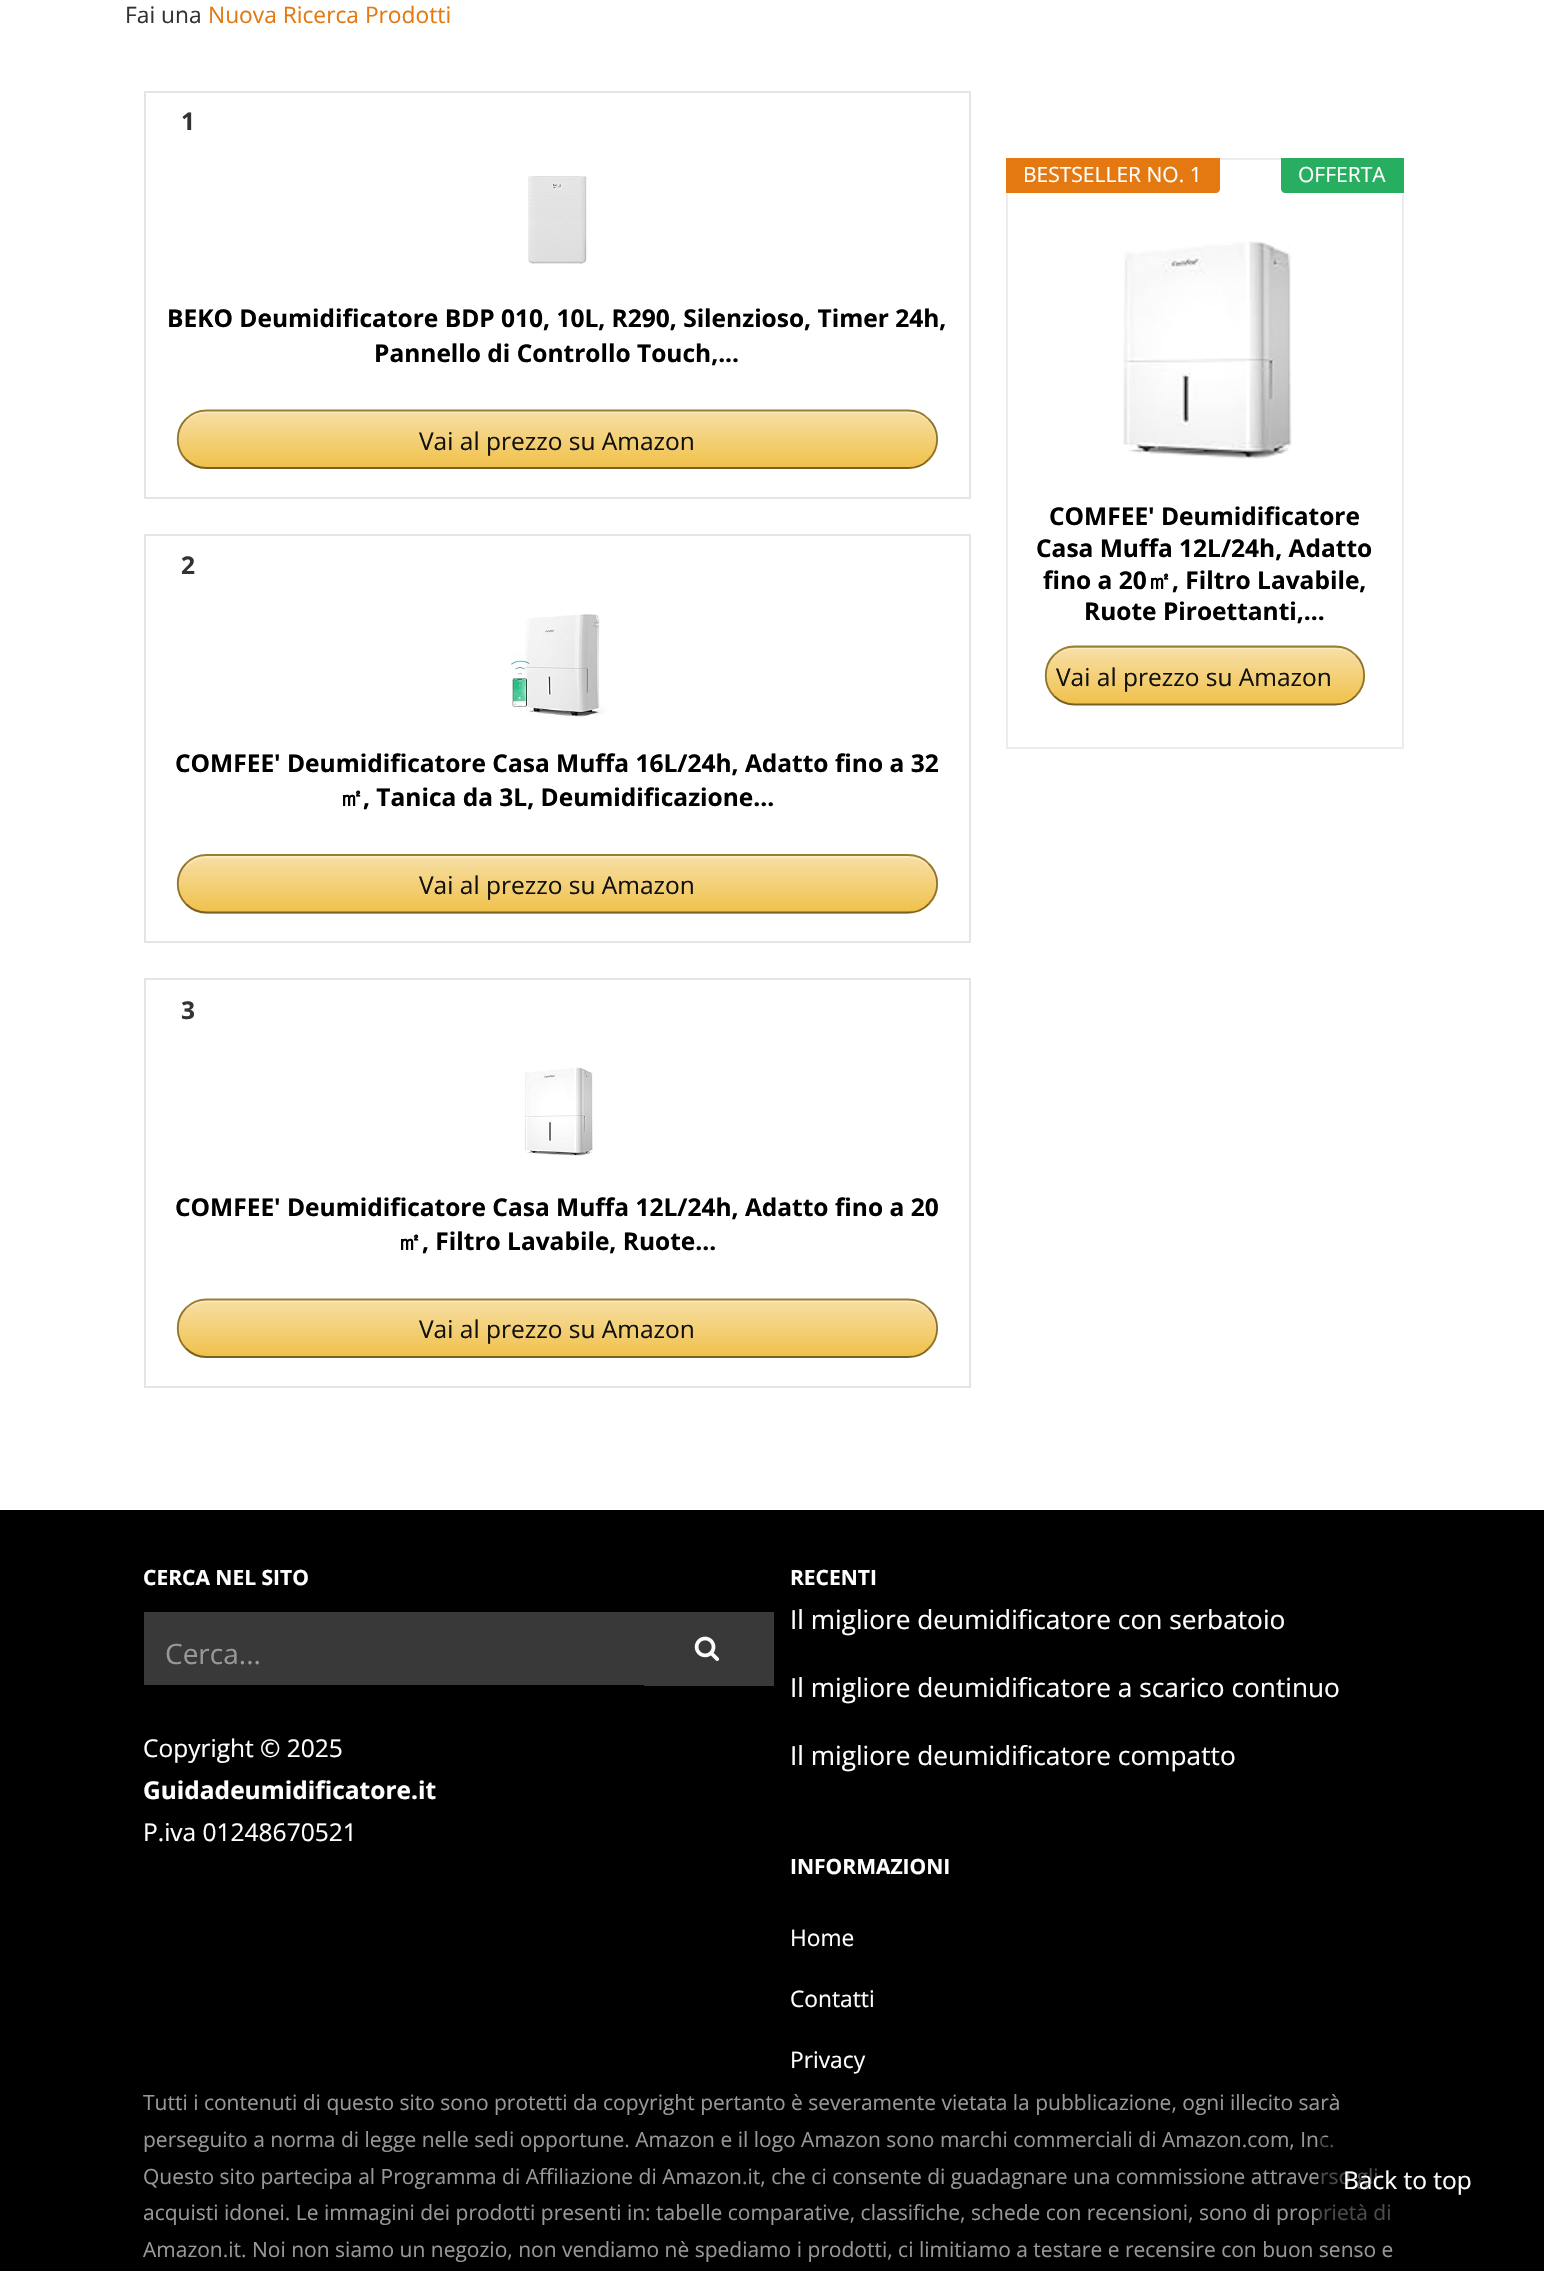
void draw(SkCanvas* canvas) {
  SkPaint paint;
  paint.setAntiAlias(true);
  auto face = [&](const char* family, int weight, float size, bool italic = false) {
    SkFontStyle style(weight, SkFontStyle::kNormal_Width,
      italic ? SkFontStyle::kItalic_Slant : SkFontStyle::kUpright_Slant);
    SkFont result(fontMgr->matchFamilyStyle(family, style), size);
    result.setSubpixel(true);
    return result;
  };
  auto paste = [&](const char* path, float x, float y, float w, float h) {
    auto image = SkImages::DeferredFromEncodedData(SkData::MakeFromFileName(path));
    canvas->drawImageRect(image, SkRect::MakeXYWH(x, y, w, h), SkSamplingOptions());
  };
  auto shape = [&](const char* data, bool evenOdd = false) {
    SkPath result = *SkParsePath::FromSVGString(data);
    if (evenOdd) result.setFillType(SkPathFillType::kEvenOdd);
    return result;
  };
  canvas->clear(0xffffffff);
  paint.setStroke(true);
  paint.setStrokeWidth(2);
  paint.setColor(0xffe5e5e5);
  canvas->drawRect(SkRect::MakeXYWH(145, 92, 825, 406), paint);
  paste("img/1.png", 527, 176, 60, 88);
  canvas->save();
  canvas->clipPath(shape("M206.5 410H908.5C925 410 938 423 938 439.5C938 456 925 469 908.5 469H206.5C190 469 177 456 177 439.5C177 423 190 410 206.5 410Z"), true);
  paint.setStroke(false);
  {
    const SkColor colors[] = {0xfff7dfa5, 0xfff0c14b};
    const float stops[] = {0, 1};
    const SkPoint ends[] = {{557, 411}, {557, 467}};
    paint.setShader(SkGradientShader::MakeLinear(ends, colors, stops, 2, SkTileMode::kClamp));
    paint.setAlpha(255);
  }
  canvas->drawRect(SkRect::MakeXYWH(177, 411, 761, 56), paint);
  {
    const SkColor colors[] = {0xfff7dfa5, 0xfff0c14b};
    const float stops[] = {0, 1};
    const SkPoint ends[] = {{557, 467}, {557, 523}};
    paint.setShader(SkGradientShader::MakeLinear(ends, colors, stops, 2, SkTileMode::kClamp));
    paint.setAlpha(255);
  }
  canvas->drawRect(SkRect::MakeXYWH(196, 467, 723, 2), paint);
  canvas->restore();
  paint.setShader(nullptr);
  paint.setColor(0x66ffffff);
  canvas->drawPath(shape("M206 413H908C924 413 935 425 936 440V439C936 424 923 411 908 411H207C195 411 185 419 181 429C185 420 195 413 206 413Z"), paint);
  paint.setStroke(true);
  paint.setStrokeWidth(1.8f);
  paint.setColor(0xff9c7e31);
  canvas->drawPath(shape("M186 419C191.5 413.5 199 410.5 206.5 410.5H908C916 410.5 923.5 413.5 928.5 419"), paint);
  paint.setColor(0xff90742d);
  canvas->drawPath(shape("M928.5 419C940 430 940 448.5 928.5 459.5"), paint);
  paint.setColor(0xff786025);
  canvas->drawPath(shape("M928.5 459.5C923.5 465 916 468 908 468H206.5C199 468 191.5 465 186 459.5"), paint);
  paint.setColor(0xff90742d);
  canvas->drawPath(shape("M186 459.5C175 448.5 175 430 186 419"), paint);
  paint.setStrokeWidth(2);
  paint.setColor(0xffe5e5e5);
  canvas->drawRect(SkRect::MakeXYWH(145, 535, 825, 407), paint);
  paste("img/2.png", 511, 614, 95, 103);
  canvas->save();
  canvas->clipPath(shape("M207 854H908C924.5 854 938 867.5 938 884C938 900.5 924.5 914 908 914H207C190.5 914 177 900.5 177 884C177 867.5 190.5 854 207 854Z"), true);
  paint.setStroke(false);
  {
    const SkColor colors[] = {0xfff7dfa5, 0xfff0c14b};
    const float stops[] = {0, 1};
    const SkPoint ends[] = {{557, 856}, {557, 912}};
    paint.setShader(SkGradientShader::MakeLinear(ends, colors, stops, 2, SkTileMode::kClamp));
    paint.setAlpha(255);
  }
  canvas->drawRect(SkRect::MakeXYWH(177, 856, 761, 56), paint);
  {
    const SkColor colors[] = {0xfff7dfa5, 0xfff0c14b};
    const float stops[] = {0, 1};
    const SkPoint ends[] = {{557, 912}, {557, 968}};
    paint.setShader(SkGradientShader::MakeLinear(ends, colors, stops, 2, SkTileMode::kClamp));
    paint.setAlpha(255);
  }
  canvas->drawRect(SkRect::MakeXYWH(196, 912, 723, 2), paint);
  canvas->restore();
  paint.setShader(nullptr);
  paint.setColor(0x66ffffff);
  canvas->drawPath(shape("M206 858H908C924 858 935 869 936 885V884C936 869 923 856 908 856H207C196 856 186 863 182 872C187 864 196 858 206 858Z"), paint);
  paint.setStroke(true);
  paint.setStrokeWidth(1.8f);
  paint.setColor(0xff9c7e31);
  canvas->drawPath(shape("M186 863.5C191.5 858 199 855 206.5 855H908C916 855 923.5 858 928.5 863.5"), paint);
  paint.setColor(0xff90742d);
  canvas->drawPath(shape("M928.5 863.5C940 874.5 940 893 928.5 904"), paint);
  paint.setColor(0xff786025);
  canvas->drawPath(shape("M928.5 904C923.5 909.5 916 912.5 908 912.5H206.5C199 912.5 191.5 909.5 186 904"), paint);
  paint.setColor(0xff90742d);
  canvas->drawPath(shape("M186 904C175 893 175 874.5 186 863.5"), paint);
  paint.setStrokeWidth(2);
  paint.setColor(0xffe5e5e5);
  canvas->drawRect(SkRect::MakeXYWH(145, 979, 825, 408), paint);
  paste("img/3.png", 524, 1067, 69, 89);
  canvas->save();
  canvas->clipPath(shape("M206.5 1299H908.5C925 1299 938 1312 938 1328.5C938 1345 925 1358 908.5 1358H206.5C190 1358 177 1345 177 1328.5C177 1312 190 1299 206.5 1299Z"), true);
  paint.setStroke(false);
  {
    const SkColor colors[] = {0xfff7dfa5, 0xfff0c14b};
    const float stops[] = {0, 1};
    const SkPoint ends[] = {{557, 1300}, {557, 1356}};
    paint.setShader(SkGradientShader::MakeLinear(ends, colors, stops, 2, SkTileMode::kClamp));
    paint.setAlpha(255);
  }
  canvas->drawRect(SkRect::MakeXYWH(177, 1300, 761, 56), paint);
  {
    const SkColor colors[] = {0xfff7dfa5, 0xfff0c14b};
    const float stops[] = {0, 1};
    const SkPoint ends[] = {{557, 1356}, {557, 1412}};
    paint.setShader(SkGradientShader::MakeLinear(ends, colors, stops, 2, SkTileMode::kClamp));
    paint.setAlpha(255);
  }
  canvas->drawRect(SkRect::MakeXYWH(196, 1356, 723, 2), paint);
  canvas->restore();
  paint.setShader(nullptr);
  paint.setColor(0x66ffffff);
  canvas->drawPath(shape("M206 1302H908C924 1302 935 1314 936 1329V1328C936 1313 923 1300 908 1300H207C195 1300 185 1308 181 1318C185 1309 195 1302 206 1302Z"), paint);
  paint.setStroke(true);
  paint.setStrokeWidth(1.8f);
  paint.setColor(0xff9c7e31);
  canvas->drawPath(shape("M186 1308C191.5 1302.5 199 1299.5 206.5 1299.5H908C916 1299.5 923.5 1302.5 928.5 1308"), paint);
  paint.setColor(0xff90742d);
  canvas->drawPath(shape("M928.5 1308C940 1319 940 1337.5 928.5 1348.5"), paint);
  paint.setColor(0xff786025);
  canvas->drawPath(shape("M928.5 1348.5C923.5 1354 916 1357 908 1357H206.5C199 1357 191.5 1354 186 1348.5"), paint);
  paint.setColor(0xff90742d);
  canvas->drawPath(shape("M186 1348.5C175 1337.5 175 1319 186 1308"), paint);
  paint.setStrokeWidth(2);
  paint.setColor(0xffececec);
  canvas->drawRect(SkRect::MakeXYWH(1007, 159, 396, 589), paint);
  paint.setStroke(false);
  paint.setColor(0xffe47911);
  canvas->drawPath(shape("M1006 158H1220V189C1220 191 1218 193 1216 193H1006Z"), paint);
  paint.setColor(0xff27ae60);
  canvas->drawPath(shape("M1281 158H1404V193H1285C1283 193 1281 191 1281 189Z"), paint);
  paste("img/4.png", 1123, 241, 169, 218);
  canvas->save();
  canvas->clipPath(shape("M1074.5 646H1335.5C1352 646 1365 659 1365 675.5C1365 692 1352 705 1335.5 705H1074.5C1058 705 1045 692 1045 675.5C1045 659 1058 646 1074.5 646Z"), true);
  {
    const SkColor colors[] = {0xfff7dfa5, 0xfff0c14b};
    const float stops[] = {0, 1};
    const SkPoint ends[] = {{1205, 592}, {1205, 648}};
    paint.setShader(SkGradientShader::MakeLinear(ends, colors, stops, 2, SkTileMode::kClamp));
    paint.setAlpha(255);
  }
  canvas->drawRect(SkRect::MakeXYWH(1064, 646, 282, 2), paint);
  {
    const SkColor colors[] = {0xfff7dfa5, 0xfff0c14b};
    const float stops[] = {0, 1};
    const SkPoint ends[] = {{1205, 648}, {1205, 704}};
    paint.setShader(SkGradientShader::MakeLinear(ends, colors, stops, 2, SkTileMode::kClamp));
    paint.setAlpha(255);
  }
  canvas->drawRect(SkRect::MakeXYWH(1045, 648, 320, 56), paint);
  canvas->restore();
  paint.setShader(nullptr);
  paint.setColor(0x66ffffff);
  canvas->drawPath(shape("M1074 649H1335C1351 649 1363 662 1363 677V676C1363 661 1350 648 1335 648H1075C1065 648 1057 653 1052 660C1057 654 1065 649 1074 649Z"), paint);
  paint.setStroke(true);
  paint.setStrokeWidth(1.8f);
  paint.setColor(0xff9c7e31);
  canvas->drawPath(shape("M1054 655C1059.5 649.5 1067 646.5 1074.5 646.5H1335C1343 646.5 1350.5 649.5 1355.5 655"), paint);
  paint.setColor(0xff90742d);
  canvas->drawPath(shape("M1355.5 655C1367 666 1367 685 1355.5 696"), paint);
  paint.setColor(0xff786025);
  canvas->drawPath(shape("M1355.5 696C1350.5 701.5 1343 704.5 1335 704.5H1074.5C1067 704.5 1059.5 701.5 1054 696"), paint);
  paint.setColor(0xff90742d);
  canvas->drawPath(shape("M1054 696C1043 685 1043 666 1054 655"), paint);
  paint.setStroke(false);
  {
    const struct { float x, y, w, h; SkColor color; } items[] = {
      {0, 1510, 1544, 761, 0xff000000},
      {144, 1612, 500, 73, 0xff393939},
      {644, 1612, 130, 74, 0xff393939},
    };
    for (auto [x, y, w, h, color] : items) {
      paint.setColor(color);
      canvas->drawRect(SkRect::MakeXYWH(x, y, w, h), paint);
    }
  }
  paste("img/5.png", 694, 1636, 26, 25);
  auto f0 = face("Open Sans", 400, 22.75f);
  paint.setColor(0xff333333);
  canvas->drawString("Fai una", 125, 23, f0, paint);
  paint.setColor(0xffe47911);
  canvas->drawString("Nuova Ricerca Prodotti", 208, 23, f0, paint);
  auto f1 = face("Open Sans", 700, 24.5f);
  paint.setColor(0xff333333);
  canvas->drawString("1", 181, 130, f1, paint);
  paint.setColor(0xff000000);
  canvas->drawString("BEKO Deumidificatore BDP 010, 10L, R290, Silenzioso, Timer 24h,", 167, 327, f1, paint);
  canvas->drawString("Pannello di Controllo Touch,...", 374, 362, f1, paint);
  auto f2 = face("Open Sans", 400, 24.5f);
  paint.setColor(0xff111111);
  canvas->drawString("Vai al prezzo su Amazon", 419, 450, f2, paint);
  paint.setColor(0xff333333);
  canvas->drawString("2", 181, 574, f1, paint);
  paint.setColor(0xff000000);
  canvas->drawString("COMFEE' Deumidificatore Casa Muffa 16L/24h, Adatto fino a 32", 175, 772, f1, paint);
  auto f3 = face("WenQuanYi Zen Hei", 700, 24.5f);
  canvas->drawString("㎡", 339, 806, f3, paint);
  canvas->drawString(", Tanica da 3L, Deumidificazione...", 363, 806, f1, paint);
  paint.setColor(0xff111111);
  canvas->drawString("Vai al prezzo su Amazon", 419, 894, f2, paint);
  paint.setColor(0xff333333);
  canvas->drawString("3", 181, 1019, f1, paint);
  paint.setColor(0xff000000);
  canvas->drawString("COMFEE' Deumidificatore Casa Muffa 12L/24h, Adatto fino a 20", 175, 1216, f1, paint);
  canvas->drawString("㎡", 397, 1250, f3, paint);
  canvas->drawString(", Filtro Lavabile, Ruote...", 422, 1250, f1, paint);
  paint.setColor(0xff111111);
  canvas->drawString("Vai al prezzo su Amazon", 419, 1338, f2, paint);
  auto f4 = face("Open Sans", 400, 21);
  paint.setColor(0xffffffff);
  canvas->drawString("BESTSELLER NO. 1", 1023, 182, f4, paint);
  canvas->drawString("OFFERTA", 1298, 182, f4, paint);
  paint.setColor(0xff000000);
  {
    const struct { const char* s; float x, y; } items[] = {
      {"COMFEE' Deumidificatore", 1049, 525},
      {"Casa Muffa 12L/24h, Adatto", 1036, 557},
      {"fino a 20", 1043, 589},
    };
    for (auto [s, x, y] : items) {
      canvas->drawString(s, x, y, f1, paint);
    }
  }
  canvas->drawString("㎡", 1147, 589, f3, paint);
  canvas->drawString(", Filtro Lavabile,", 1172, 589, f1, paint);
  canvas->drawString("Ruote Piroettanti,...", 1084, 620, f1, paint);
  paint.setColor(0xff111111);
  canvas->drawString("Vai al prezzo su Amazon", 1056, 686, f2, paint);
  canvas->save();
  canvas->clipRect(SkRect::MakeXYWH(144, 1563, 612, 40));
  auto f5 = face("Open Sans", 700, 21);
  paint.setColor(0xffffffff);
  canvas->drawString("CERCA NEL SITO", 143, 1585, f5, paint);
  canvas->restore();
  auto f6 = face("Open Sans", 400, 28);
  paint.setColor(0xff989898);
  canvas->drawString("Cerca...", 165, 1664, f6, paint);
  paint.setColor(0xffffffff);
  canvas->drawString("Copyright © 2025", 143, 1757, f2, paint);
  canvas->drawString("Guidadeumidificatore.it", 143, 1799, f1, paint);
  canvas->drawString("P.iva 01248670521", 143, 1841, f2, paint);
  canvas->drawString("RECENTI", 790, 1585, f5, paint);
  auto f7 = face("Open Sans", 400, 26.25f);
  {
    const struct { const char* s; float x, y; } items[] = {
      {"Il migliore deumidificatore con serbatoio", 790, 1629},
      {"Il migliore deumidificatore a scarico continuo", 790, 1697},
      {"Il migliore deumidificatore compatto", 790, 1765},
    };
    for (auto [s, x, y] : items) {
      canvas->drawString(s, x, y, f7, paint);
    }
  }
  canvas->drawString("INFORMAZIONI", 790, 1874, f5, paint);
  {
    const struct { const char* s; float x, y; } items[] = {
      {"Home", 790, 1946},
      {"Contatti", 790, 2007},
      {"Privacy", 790, 2068},
    };
    for (auto [s, x, y] : items) {
      canvas->drawString(s, x, y, f0, paint);
    }
  }
  paint.setColor(0xff989898);
  {
    const struct { const char* s; float x, y; } items[] = {
      {"Tutti i contenuti di questo sito sono protetti da copyright pertanto è severamente vietata la pubblicazione, ogni illecito sarà", 143, 2110},
      {"perseguito a norma di legge nelle sedi opportune. Amazon e il logo Amazon sono marchi commerciali di Amazon.com, Inc.", 143, 2147},
      {"Questo sito partecipa al Programma di Affiliazione di Amazon.it, che ci consente di guadagnare una commissione attraverso gli", 143, 2184},
      {"acquisti idonei. Le immagini dei prodotti presenti in: tabelle comparative, classifiche, schede con recensioni, sono di proprietà di", 143, 2220},
      {"Amazon.it. Noi non siamo un negozio, non vendiamo nè spediamo i prodotti, ci limitiamo a testare e recensire con buon senso e", 143, 2257},
    };
    for (auto [s, x, y] : items) {
      canvas->drawString(s, x, y, f4, paint);
    }
  }
  paint.setColor(0x80000000);
  canvas->drawRect(SkRect::MakeXYWH(1318, 2137, 72, 84), paint);
  paint.setColor(0xffffffff);
  canvas->drawString("Back to top", 1343, 2189, f2, paint);
}
